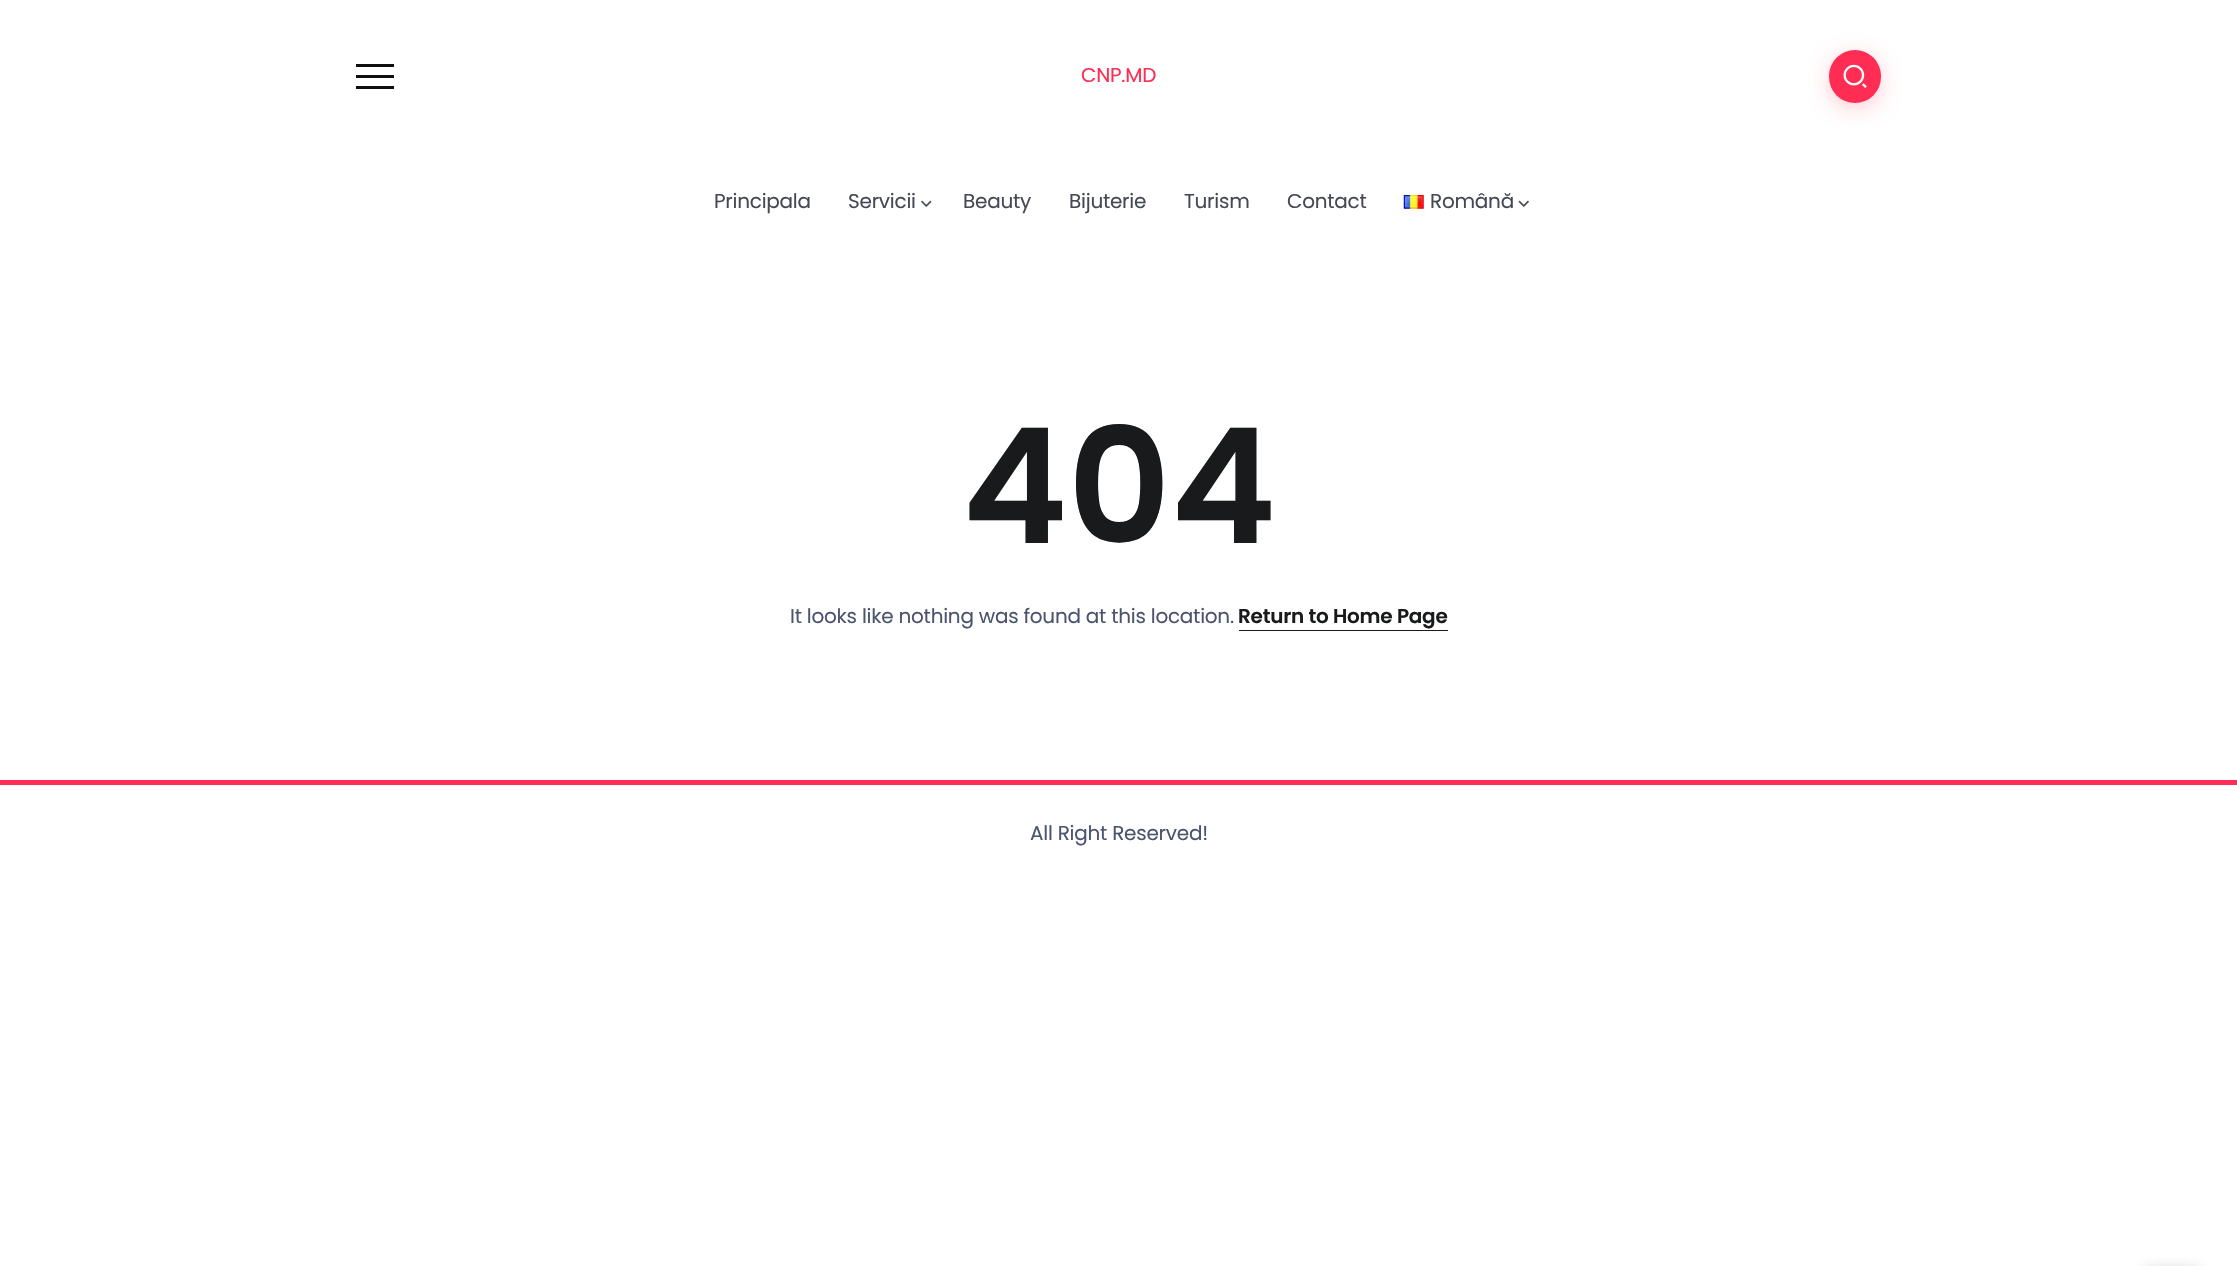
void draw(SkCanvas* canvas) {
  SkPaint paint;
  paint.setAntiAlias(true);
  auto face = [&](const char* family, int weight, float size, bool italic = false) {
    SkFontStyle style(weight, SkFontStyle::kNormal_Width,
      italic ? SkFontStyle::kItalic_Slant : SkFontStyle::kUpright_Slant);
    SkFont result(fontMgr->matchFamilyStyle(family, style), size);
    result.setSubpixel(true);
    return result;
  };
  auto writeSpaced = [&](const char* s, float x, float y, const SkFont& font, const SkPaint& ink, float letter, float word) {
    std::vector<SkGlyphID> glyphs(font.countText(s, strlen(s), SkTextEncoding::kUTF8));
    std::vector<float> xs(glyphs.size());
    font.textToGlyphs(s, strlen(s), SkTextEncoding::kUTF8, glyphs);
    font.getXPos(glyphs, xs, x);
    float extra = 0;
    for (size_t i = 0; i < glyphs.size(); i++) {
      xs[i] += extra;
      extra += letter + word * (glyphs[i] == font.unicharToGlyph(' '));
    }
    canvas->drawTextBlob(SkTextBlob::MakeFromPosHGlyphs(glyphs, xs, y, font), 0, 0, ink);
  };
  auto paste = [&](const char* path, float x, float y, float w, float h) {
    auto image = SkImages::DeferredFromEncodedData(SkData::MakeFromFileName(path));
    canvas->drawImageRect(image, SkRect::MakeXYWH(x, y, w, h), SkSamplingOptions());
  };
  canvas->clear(0xffffffff);
  {
    const struct { float x, y, w, h; SkColor color; } items[] = {
      {356, 64, 38, 3, 0xff0f0f0f},
      {356, 75, 38, 3, 0xff0f0f0f},
      {356, 86, 38, 3, 0xff0f0f0f},
    };
    for (auto [x, y, w, h, color] : items) {
      paint.setColor(color);
      canvas->drawRect(SkRect::MakeXYWH(x, y, w, h), paint);
    }
  }
  paint.setColor(0xffff2c54);
  paint.setMaskFilter(SkMaskFilter::MakeBlur(kNormal_SkBlurStyle, 15.5f));
  canvas->drawRoundRect(SkRect::MakeXYWH(1841, 68, 28, 27), 13.5f, 13.5f, paint);
  paint.setMaskFilter(nullptr);
  canvas->drawRoundRect(SkRect::MakeXYWH(1829, 50, 52, 53), 26, 26, paint);
  paste("img/1.png", 1843, 64, 24, 24);
  paste("img/2.png", 921, 200, 11, 7);
  paste("img/3.png", 1403, 195, 21, 14);
  paste("img/4.png", 1518, 200, 11, 7);
  paint.setColor(0xff191a1b);
  canvas->drawRect(SkRect::MakeXYWH(1239, 630, 209, 1), paint);
  paint.setColor(0xffff2c54);
  canvas->drawRect(SkRect::MakeXYWH(0, 780, 2237, 5), paint);
  paint.setColor(0x3d28292f);
  paint.setMaskFilter(SkMaskFilter::MakeBlur(kNormal_SkBlurStyle, 7.5f));
  canvas->drawRoundRect(SkRect::MakeXYWH(2144, 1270, 56, 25), 6, 6, paint);
  paint.setMaskFilter(nullptr);
  auto f0 = face("Poppins", 400, 20);
  paint.setColor(0xffff2c54);
  writeSpaced("CNP.MD", 1081, 82, f0, paint, -0.25f, 0);
  paint.setColor(0xff454955);
  {
    const struct { const char* s; float x, y; } items[] = {
      {"Principala", 714, 208},
      {"Servicii", 848, 208},
      {"Beauty", 963, 208},
      {"Bijuterie", 1069, 208},
      {"Turism", 1184, 208},
      {"Contact", 1287, 208},
      {"Română", 1430, 208},
    };
    for (auto [s, x, y] : items) {
      writeSpaced(s, x, y, f0, paint, -0.25f, 0);
    }
  }
  auto f1 = face("Poppins", 600, 160);
  paint.setColor(0xff191a1b);
  writeSpaced("404", 962, 543, f1, paint, -0.25f, 0);
  paint.setColor(0xff4b546e);
  writeSpaced("It looks like nothing was found at this location.", 790, 623, f0, paint, -0.25f, 0);
  auto f2 = face("Poppins", 600, 20);
  paint.setColor(0xff191a1b);
  writeSpaced("Return to Home Page", 1238, 623, f2, paint, -0.25f, 0);
  paint.setColor(0xff4b546e);
  writeSpaced("All Right Reserved!", 1030, 840, f0, paint, -0.25f, 0);
}
